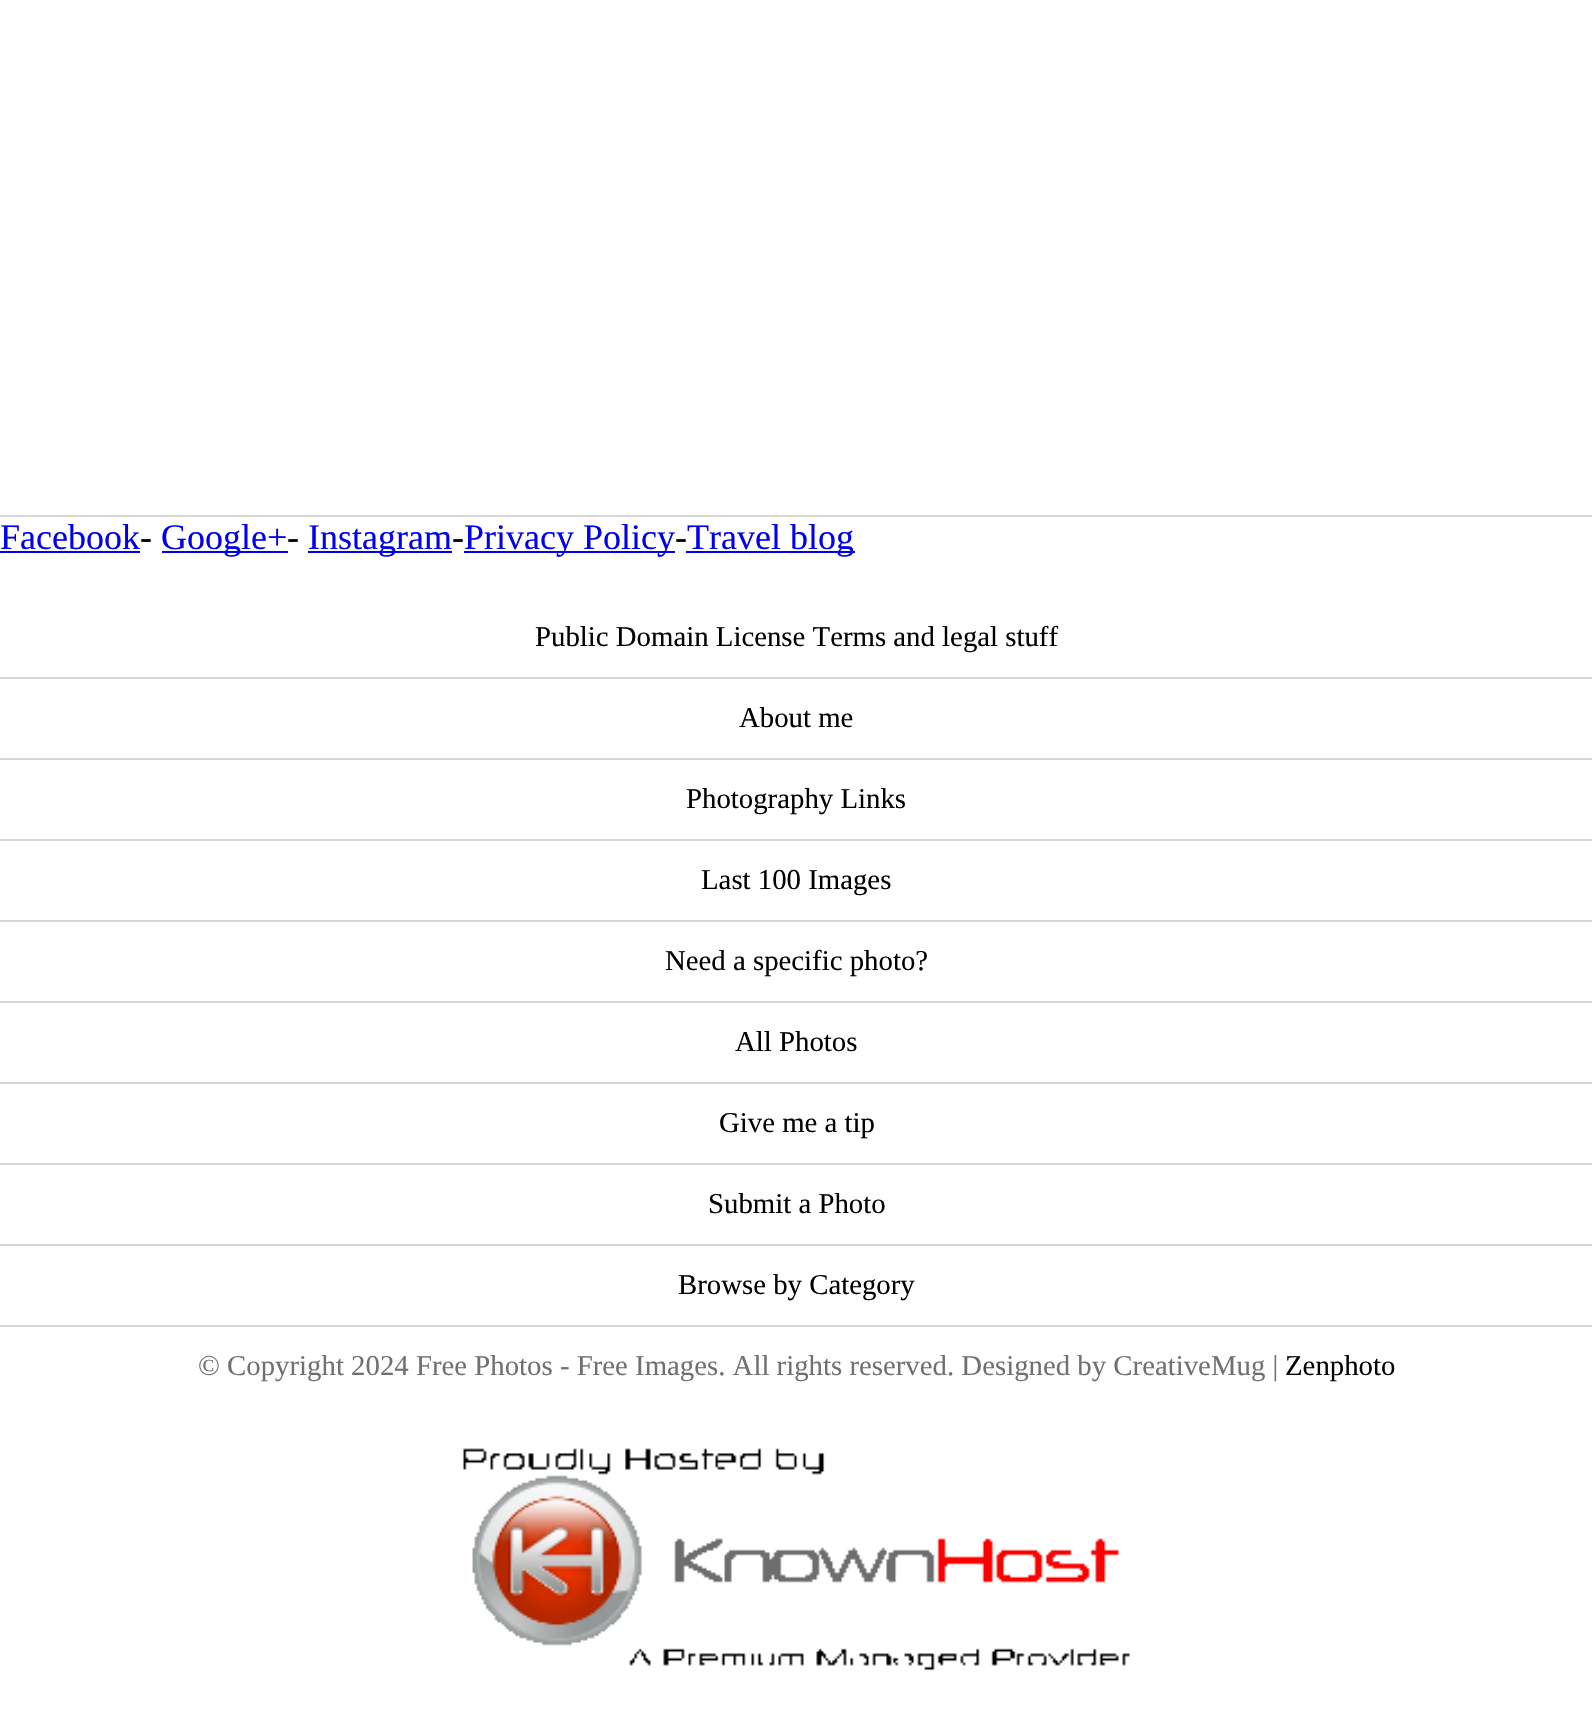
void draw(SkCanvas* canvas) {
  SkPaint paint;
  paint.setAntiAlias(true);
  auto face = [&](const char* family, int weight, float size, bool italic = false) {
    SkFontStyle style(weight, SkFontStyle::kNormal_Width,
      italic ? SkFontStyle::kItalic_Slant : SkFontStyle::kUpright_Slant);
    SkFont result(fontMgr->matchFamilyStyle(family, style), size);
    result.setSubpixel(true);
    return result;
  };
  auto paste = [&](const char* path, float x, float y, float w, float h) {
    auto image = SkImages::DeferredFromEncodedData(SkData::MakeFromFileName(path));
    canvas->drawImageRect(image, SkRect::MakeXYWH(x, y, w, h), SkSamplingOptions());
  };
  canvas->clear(0xffffffff);
  {
    const struct { float x, y, w, h; SkColor color; } items[] = {
      {0, 515, 1592, 2, 0xffd5d5d5},
      {0, 551, 140, 2, 0xff0000ee},
      {162, 551, 126, 2, 0xff0000ee},
      {308, 551, 144, 2, 0xff0000ee},
      {464, 551, 211, 2, 0xff0000ee},
      {686, 551, 169, 2, 0xff0000ee},
      {0, 677, 1592, 2, 0xffd5d5d5},
      {0, 758, 1592, 2, 0xffd5d5d5},
      {0, 839, 1592, 2, 0xffd5d5d5},
      {0, 920, 1592, 2, 0xffd5d5d5},
      {0, 1001, 1592, 2, 0xffd5d5d5},
      {0, 1082, 1592, 2, 0xffd5d5d5},
      {0, 1163, 1592, 2, 0xffd5d5d5},
      {0, 1244, 1592, 2, 0xffd5d5d5},
      {0, 1325, 1592, 2, 0xffd5d5d5},
    };
    for (auto [x, y, w, h, color] : items) {
      paint.setColor(color);
      canvas->drawRect(SkRect::MakeXYWH(x, y, w, h), paint);
    }
  }
  paste("img/1.png", 463, 1448, 668, 223);
  auto f0 = face("Liberation Serif", 400, 36);
  paint.setColor(0xff0000ee);
  canvas->drawString("Facebook", 0, 549, f0, paint);
  paint.setColor(0xff000000);
  canvas->drawString("-", 140, 549, f0, paint);
  paint.setColor(0xff0000ee);
  canvas->drawString("Google+", 161, 549, f0, paint);
  paint.setColor(0xff000000);
  canvas->drawString("-", 287, 549, f0, paint);
  paint.setColor(0xff0000ee);
  canvas->drawString("Instagram", 308, 549, f0, paint);
  paint.setColor(0xff000000);
  canvas->drawString("-", 452, 549, f0, paint);
  paint.setColor(0xff0000ee);
  canvas->drawString("Privacy Policy", 464, 549, f0, paint);
  paint.setColor(0xff000000);
  canvas->drawString("-", 675, 549, f0, paint);
  paint.setColor(0xff0000ee);
  canvas->drawString("Travel blog", 687, 549, f0, paint);
  auto f1 = face("Liberation Serif", 400, 28.8f);
  paint.setColor(0xff000000);
  {
    const struct { const char* s; float x, y; } items[] = {
      {"Public Domain License Terms and legal stuff", 535, 646},
      {"About me", 739, 727},
      {"Photography Links", 686, 808},
      {"Last 100 Images", 701, 889},
      {"Need a specific photo?", 665, 970},
      {"All Photos", 735, 1051},
      {"Give me a tip", 719, 1132},
      {"Submit a Photo", 708, 1213},
      {"Browse by Category", 678, 1294},
    };
    for (auto [s, x, y] : items) {
      canvas->drawString(s, x, y, f1, paint);
    }
  }
  paint.setColor(0xff707070);
  canvas->drawString("© Copyright 2024 Free Photos - Free Images. All rights reserved. Designed by CreativeMug |", 198, 1375, f1, paint);
  paint.setColor(0xff000000);
  canvas->drawString("Zenphoto", 1285, 1375, f1, paint);
}
